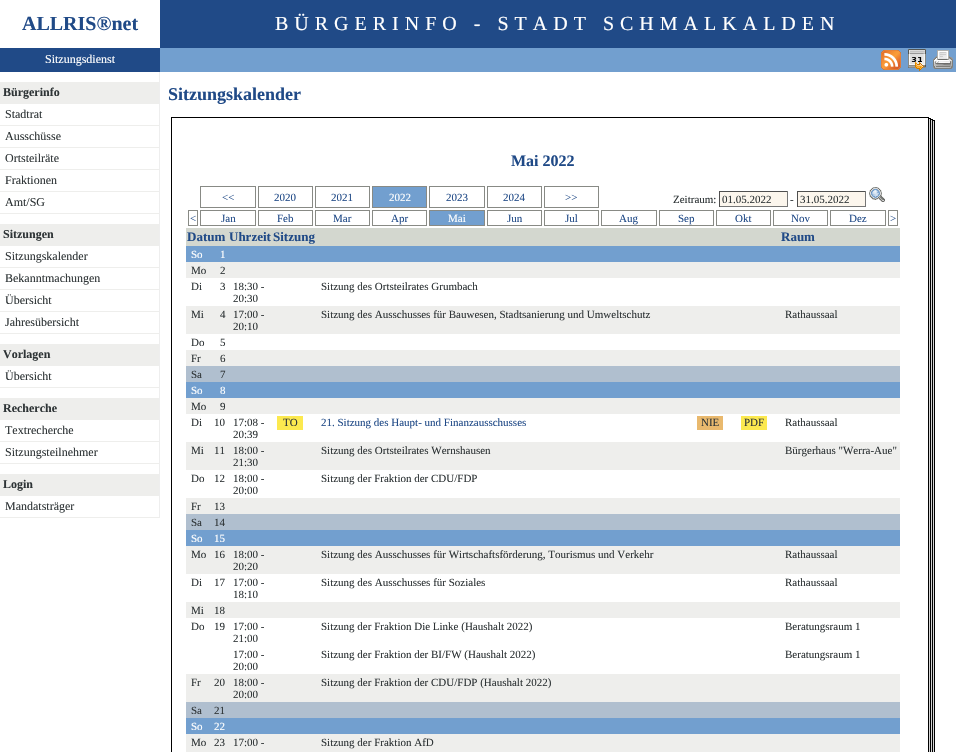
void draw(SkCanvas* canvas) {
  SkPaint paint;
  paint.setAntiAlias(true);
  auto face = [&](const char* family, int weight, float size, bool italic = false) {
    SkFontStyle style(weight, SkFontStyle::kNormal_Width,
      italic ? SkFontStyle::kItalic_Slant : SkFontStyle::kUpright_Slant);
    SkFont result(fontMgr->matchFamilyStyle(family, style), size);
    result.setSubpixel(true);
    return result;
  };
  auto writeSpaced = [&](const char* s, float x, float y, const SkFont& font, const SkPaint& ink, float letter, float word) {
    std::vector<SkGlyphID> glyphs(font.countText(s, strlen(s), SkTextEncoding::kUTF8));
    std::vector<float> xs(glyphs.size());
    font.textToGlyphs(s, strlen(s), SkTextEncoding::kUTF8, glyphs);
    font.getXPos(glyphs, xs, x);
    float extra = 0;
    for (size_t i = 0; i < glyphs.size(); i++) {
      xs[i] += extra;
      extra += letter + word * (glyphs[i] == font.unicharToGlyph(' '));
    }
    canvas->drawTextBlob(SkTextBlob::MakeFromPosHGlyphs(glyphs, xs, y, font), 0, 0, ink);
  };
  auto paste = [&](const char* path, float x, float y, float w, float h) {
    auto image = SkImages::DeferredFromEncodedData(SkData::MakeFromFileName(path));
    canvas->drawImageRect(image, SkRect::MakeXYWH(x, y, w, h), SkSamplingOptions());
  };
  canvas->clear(0xffffffff);
  {
    const struct { float x, y, w, h; SkColor color; } items[] = {
      {159, 72, 1, 446, 0xffeeeeee},
      {0, 48, 160, 24, 0xff204a87},
      {0, 82, 159, 22, 0xffeeeeec},
      {0, 125, 159, 1, 0xffeeeeec},
      {0, 147, 159, 1, 0xffeeeeec},
      {0, 169, 159, 1, 0xffeeeeec},
      {0, 191, 159, 1, 0xffeeeeec},
      {0, 213, 159, 1, 0xffeeeeec},
      {0, 224, 159, 22, 0xffeeeeec},
      {0, 267, 159, 1, 0xffeeeeec},
      {0, 289, 159, 1, 0xffeeeeec},
      {0, 311, 159, 1, 0xffeeeeec},
      {0, 333, 159, 1, 0xffeeeeec},
      {0, 344, 159, 22, 0xffeeeeec},
      {0, 387, 159, 1, 0xffeeeeec},
      {0, 398, 159, 22, 0xffeeeeec},
      {0, 441, 159, 1, 0xffeeeeec},
      {0, 463, 159, 1, 0xffeeeeec},
      {0, 474, 159, 22, 0xffeeeeec},
      {0, 517, 159, 1, 0xffeeeeec},
      {160, 0, 796, 48, 0xff204a87},
      {160, 48, 796, 24, 0xff729fcf},
    };
    for (auto [x, y, w, h, color] : items) {
      paint.setColor(color);
      canvas->drawRect(SkRect::MakeXYWH(x, y, w, h), paint);
    }
  }
  paste("img/1.png", 881, 50, 20, 20);
  paste("img/2.png", 908, 49, 18, 22);
  paste("img/3.png", 933, 50, 20, 19);
  paste("img/4.png", 171, 117, 15, 22);
  paint.setColor(0xff000000);
  canvas->drawRect(SkRect::MakeXYWH(186, 117, 714, 1), paint);
  paste("img/5.png", 900, 117, 35, 22);
  canvas->drawRect(SkRect::MakeXYWH(171, 139, 1, 613), paint);
  paint.setStroke(true);
  paint.setStrokeWidth(1);
  paint.setColor(0xff888a85);
  canvas->drawRect(SkRect::MakeXYWH(200.5f, 186.5f, 55, 21), paint);
  canvas->drawRect(SkRect::MakeXYWH(258.5f, 186.5f, 54, 21), paint);
  canvas->drawRect(SkRect::MakeXYWH(315.5f, 186.5f, 54, 21), paint);
  paint.setStroke(false);
  paint.setColor(0xff729fcf);
  canvas->drawRect(SkRect::MakeXYWH(372.5f, 186.5f, 54, 21), paint);
  paint.setStroke(true);
  paint.setColor(0xff888a85);
  canvas->drawRect(SkRect::MakeXYWH(372.5f, 186.5f, 54, 21), paint);
  canvas->drawRect(SkRect::MakeXYWH(429.5f, 186.5f, 55, 21), paint);
  canvas->drawRect(SkRect::MakeXYWH(487.5f, 186.5f, 54, 21), paint);
  canvas->drawRect(SkRect::MakeXYWH(544.5f, 186.5f, 54, 21), paint);
  paint.setStroke(false);
  {
    const struct { float x, y, w, h; SkColor color; } items[] = {
      {720, 192, 67, 14, 0xfffcf6ed},
      {719, 191, 69, 1, 0xff4f4f4f},
      {787, 191, 1, 16, 0xff767676},
      {719, 206, 69, 1, 0xff767676},
      {719, 191, 1, 16, 0xff4f4f4f},
      {798, 192, 67, 14, 0xfffcf6ed},
      {797, 191, 69, 1, 0xff4f4f4f},
      {865, 191, 1, 16, 0xff767676},
      {797, 206, 69, 1, 0xff767676},
      {797, 191, 1, 16, 0xff4f4f4f},
    };
    for (auto [x, y, w, h, color] : items) {
      paint.setColor(color);
      canvas->drawRect(SkRect::MakeXYWH(x, y, w, h), paint);
    }
  }
  paste("img/6.png", 869, 187, 16, 15);
  paint.setStroke(true);
  paint.setColor(0xff888a85);
  canvas->drawRect(SkRect::MakeXYWH(188.5f, 210.5f, 9, 15), paint);
  canvas->drawRect(SkRect::MakeXYWH(200.5f, 210.5f, 55, 15), paint);
  canvas->drawRect(SkRect::MakeXYWH(258.5f, 210.5f, 54, 15), paint);
  canvas->drawRect(SkRect::MakeXYWH(315.5f, 210.5f, 54, 15), paint);
  canvas->drawRect(SkRect::MakeXYWH(372.5f, 210.5f, 54, 15), paint);
  paint.setStroke(false);
  paint.setColor(0xff729fcf);
  canvas->drawRect(SkRect::MakeXYWH(429.5f, 210.5f, 55, 15), paint);
  paint.setStroke(true);
  paint.setColor(0xff888a85);
  canvas->drawRect(SkRect::MakeXYWH(429.5f, 210.5f, 55, 15), paint);
  canvas->drawRect(SkRect::MakeXYWH(487.5f, 210.5f, 54, 15), paint);
  canvas->drawRect(SkRect::MakeXYWH(544.5f, 210.5f, 54, 15), paint);
  canvas->drawRect(SkRect::MakeXYWH(601.5f, 210.5f, 55, 15), paint);
  canvas->drawRect(SkRect::MakeXYWH(659.5f, 210.5f, 54, 15), paint);
  canvas->drawRect(SkRect::MakeXYWH(716.5f, 210.5f, 54, 15), paint);
  canvas->drawRect(SkRect::MakeXYWH(773.5f, 210.5f, 54, 15), paint);
  canvas->drawRect(SkRect::MakeXYWH(830.5f, 210.5f, 55, 15), paint);
  canvas->drawRect(SkRect::MakeXYWH(888.5f, 210.5f, 9, 15), paint);
  paint.setStroke(false);
  {
    const struct { float x, y, w, h; SkColor color; } items[] = {
      {186, 228, 714, 18, 0xffd3d7cf},
      {186, 246, 714, 16, 0xff729fcf},
      {186, 262, 714, 16, 0xffeeeeec},
      {186, 306, 714, 28, 0xffeeeeec},
      {186, 350, 714, 16, 0xffeeeeec},
      {186, 366, 714, 16, 0xffb0bfcf},
      {186, 382, 714, 16, 0xff729fcf},
      {186, 398, 714, 16, 0xffeeeeec},
      {277, 416, 26, 14, 0xfffce94f},
      {697, 416, 26, 14, 0xffe9b96e},
      {741, 416, 26, 14, 0xfffce94f},
      {186, 442, 714, 28, 0xffeeeeec},
      {186, 498, 714, 16, 0xffeeeeec},
      {186, 514, 714, 16, 0xffb0bfcf},
      {186, 530, 714, 16, 0xff729fcf},
      {186, 546, 714, 28, 0xffeeeeec},
      {186, 602, 714, 16, 0xffeeeeec},
      {186, 674, 714, 28, 0xffeeeeec},
      {186, 702, 714, 16, 0xffb0bfcf},
      {186, 718, 714, 16, 0xff729fcf},
      {186, 734, 714, 18, 0xffeeeeec},
    };
    for (auto [x, y, w, h, color] : items) {
      paint.setColor(color);
      canvas->drawRect(SkRect::MakeXYWH(x, y, w, h), paint);
    }
  }
  paste("img/7.png", 928, 139, 7, 613);
  auto f0 = face("Liberation Serif", 700, 20);
  paint.setColor(0xff204a87);
  canvas->drawString("ALLRIS®net", 22, 30, f0, paint);
  auto f1 = face("Liberation Serif", 400, 12);
  paint.setColor(0xffffffff);
  canvas->drawString("Sitzungsdienst", 45, 63, f1, paint);
  auto f2 = face("Liberation Serif", 700, 12);
  paint.setColor(0xff2e3436);
  canvas->drawString("Bürgerinfo", 3, 96, f2, paint);
  {
    const struct { const char* s; float x, y; } items[] = {
      {"Stadtrat", 5, 118},
      {"Ausschüsse", 5, 140},
      {"Ortsteilräte", 5, 162},
      {"Fraktionen", 5, 184},
      {"Amt/SG", 5, 206},
    };
    for (auto [s, x, y] : items) {
      canvas->drawString(s, x, y, f1, paint);
    }
  }
  canvas->drawString("Sitzungen", 3, 238, f2, paint);
  {
    const struct { const char* s; float x, y; } items[] = {
      {"Sitzungskalender", 5, 260},
      {"Bekanntmachungen", 5, 282},
      {"Übersicht", 5, 304},
      {"Jahresübersicht", 5, 326},
    };
    for (auto [s, x, y] : items) {
      canvas->drawString(s, x, y, f1, paint);
    }
  }
  canvas->drawString("Vorlagen", 3, 358, f2, paint);
  canvas->drawString("Übersicht", 5, 380, f1, paint);
  canvas->drawString("Recherche", 3, 412, f2, paint);
  canvas->drawString("Textrecherche", 5, 434, f1, paint);
  canvas->drawString("Sitzungsteilnehmer", 5, 456, f1, paint);
  canvas->drawString("Login", 3, 488, f2, paint);
  canvas->drawString("Mandatsträger", 5, 510, f1, paint);
  auto f3 = face("Liberation Serif", 400, 20);
  paint.setColor(0xffffffff);
  writeSpaced("BÜRGERINFO - STADT SCHMALKALDEN", 275, 30, f3, paint, 6, 0);
  auto f4 = face("Liberation Serif", 700, 18);
  paint.setColor(0xff204a87);
  canvas->drawString("Sitzungskalender", 168, 100, f4, paint);
  auto f5 = face("Liberation Serif", 700, 16);
  canvas->drawString("Mai 2022", 511, 166, f5, paint);
  auto f6 = face("Liberation Serif", 400, 11);
  {
    const struct { const char* s; float x, y; } items[] = {
      {"<<", 222, 201},
      {"2020", 274, 201},
      {"2021", 331, 201},
    };
    for (auto [s, x, y] : items) {
      canvas->drawString(s, x, y, f6, paint);
    }
  }
  paint.setColor(0xffffffff);
  canvas->drawString("2022", 389, 201, f6, paint);
  paint.setColor(0xff204a87);
  {
    const struct { const char* s; float x, y; } items[] = {
      {"2023", 446, 201},
      {"2024", 503, 201},
      {">>", 565, 201},
    };
    for (auto [s, x, y] : items) {
      canvas->drawString(s, x, y, f6, paint);
    }
  }
  paint.setColor(0xff2e3436);
  {
    const struct { const char* s; float x, y; } items[] = {
      {"Zeitraum:", 673, 203},
      {"01.05.2022", 722, 203},
      {"-", 790, 203},
      {"31.05.2022", 800, 203},
    };
    for (auto [s, x, y] : items) {
      canvas->drawString(s, x, y, f6, paint);
    }
  }
  paint.setColor(0xff204a87);
  {
    const struct { const char* s; float x, y; } items[] = {
      {"<", 190, 222},
      {"Jan", 221, 222},
      {"Feb", 277, 222},
      {"Mar", 333, 222},
      {"Apr", 391, 222},
    };
    for (auto [s, x, y] : items) {
      canvas->drawString(s, x, y, f6, paint);
    }
  }
  paint.setColor(0xffffffff);
  canvas->drawString("Mai", 448, 222, f6, paint);
  paint.setColor(0xff204a87);
  {
    const struct { const char* s; float x, y; } items[] = {
      {"Jun", 507, 222},
      {"Jul", 565, 222},
      {"Aug", 619, 222},
      {"Sep", 678, 222},
      {"Okt", 735, 222},
      {"Nov", 791, 222},
      {"Dez", 849, 222},
      {">", 890, 222},
    };
    for (auto [s, x, y] : items) {
      canvas->drawString(s, x, y, f6, paint);
    }
  }
  auto f7 = face("Liberation Serif", 700, 13);
  {
    const struct { const char* s; float x, y; } items[] = {
      {"Datum", 187, 241},
      {"Uhrzeit", 229, 241},
      {"Sitzung", 273, 241},
      {"Raum", 781, 241},
    };
    for (auto [s, x, y] : items) {
      canvas->drawString(s, x, y, f7, paint);
    }
  }
  paint.setColor(0xffffffff);
  canvas->drawString("So", 191, 258, f6, paint);
  canvas->drawString("1", 220, 258, f6, paint);
  paint.setColor(0xff2e3436);
  {
    const struct { const char* s; float x, y; } items[] = {
      {"Mo", 191, 274},
      {"2", 220, 274},
      {"Di", 191, 290},
      {"3", 220, 290},
      {"18:30 -", 233, 290},
      {"20:30", 233, 302},
      {"Sitzung des Ortsteilrates Grumbach", 321, 290},
      {"Mi", 191, 318},
      {"4", 220, 318},
      {"17:00 -", 233, 318},
      {"20:10", 233, 330},
      {"Sitzung des Ausschusses für Bauwesen, Stadtsanierung und Umweltschutz", 321, 318},
      {"Rathaussaal", 785, 318},
      {"Do", 191, 346},
      {"5", 220, 346},
      {"Fr", 191, 362},
      {"6", 220, 362},
      {"Sa", 191, 378},
      {"7", 220, 378},
    };
    for (auto [s, x, y] : items) {
      canvas->drawString(s, x, y, f6, paint);
    }
  }
  paint.setColor(0xffffffff);
  canvas->drawString("So", 191, 394, f6, paint);
  canvas->drawString("8", 220, 394, f6, paint);
  paint.setColor(0xff2e3436);
  {
    const struct { const char* s; float x, y; } items[] = {
      {"Mo", 191, 410},
      {"9", 220, 410},
      {"Di", 191, 426},
      {"10", 214, 426},
      {"17:08 -", 233, 426},
      {"20:39", 233, 438},
      {"TO", 283, 426},
    };
    for (auto [s, x, y] : items) {
      canvas->drawString(s, x, y, f6, paint);
    }
  }
  paint.setColor(0xff204a87);
  canvas->drawString("21. Sitzung des Haupt- und Finanzausschusses", 321, 426, f6, paint);
  paint.setColor(0xff2e3436);
  {
    const struct { const char* s; float x, y; } items[] = {
      {"NIE", 701, 426},
      {"PDF", 744, 426},
      {"Rathaussaal", 785, 426},
      {"Mi", 191, 454},
      {"11", 214, 454},
      {"18:00 -", 233, 454},
      {"21:30", 233, 466},
      {"Sitzung des Ortsteilrates Wernshausen", 321, 454},
      {"Bürgerhaus \"Werra-Aue\"", 785, 454},
      {"Do", 191, 482},
      {"12", 214, 482},
      {"18:00 -", 233, 482},
      {"20:00", 233, 494},
      {"Sitzung der Fraktion der CDU/FDP", 321, 482},
      {"Fr", 191, 510},
      {"13", 214, 510},
      {"Sa", 191, 526},
      {"14", 214, 526},
    };
    for (auto [s, x, y] : items) {
      canvas->drawString(s, x, y, f6, paint);
    }
  }
  paint.setColor(0xffffffff);
  canvas->drawString("So", 191, 542, f6, paint);
  canvas->drawString("15", 214, 542, f6, paint);
  paint.setColor(0xff2e3436);
  {
    const struct { const char* s; float x, y; } items[] = {
      {"Mo", 191, 558},
      {"16", 214, 558},
      {"18:00 -", 233, 558},
      {"20:20", 233, 570},
      {"Sitzung des Ausschusses für Wirtschaftsförderung, Tourismus und Verkehr", 321, 558},
      {"Rathaussaal", 785, 558},
      {"Di", 191, 586},
      {"17", 214, 586},
      {"17:00 -", 233, 586},
      {"18:10", 233, 598},
      {"Sitzung des Ausschusses für Soziales", 321, 586},
      {"Rathaussaal", 785, 586},
      {"Mi", 191, 614},
      {"18", 214, 614},
      {"Do", 191, 630},
      {"19", 214, 630},
      {"17:00 -", 233, 630},
      {"21:00", 233, 642},
      {"Sitzung der Fraktion Die Linke (Haushalt 2022)", 321, 630},
      {"Beratungsraum 1", 785, 630},
      {"17:00 -", 233, 658},
      {"20:00", 233, 670},
      {"Sitzung der Fraktion der BI/FW (Haushalt 2022)", 321, 658},
      {"Beratungsraum 1", 785, 658},
      {"Fr", 191, 686},
      {"20", 214, 686},
      {"18:00 -", 233, 686},
      {"20:00", 233, 698},
      {"Sitzung der Fraktion der CDU/FDP (Haushalt 2022)", 321, 686},
      {"Sa", 191, 714},
      {"21", 214, 714},
    };
    for (auto [s, x, y] : items) {
      canvas->drawString(s, x, y, f6, paint);
    }
  }
  paint.setColor(0xffffffff);
  canvas->drawString("So", 191, 730, f6, paint);
  canvas->drawString("22", 214, 730, f6, paint);
  paint.setColor(0xff2e3436);
  {
    const struct { const char* s; float x, y; } items[] = {
      {"Mo", 191, 746},
      {"23", 214, 746},
      {"17:00 -", 233, 746},
      {"Sitzung der Fraktion AfD", 321, 746},
    };
    for (auto [s, x, y] : items) {
      canvas->drawString(s, x, y, f6, paint);
    }
  }
}
